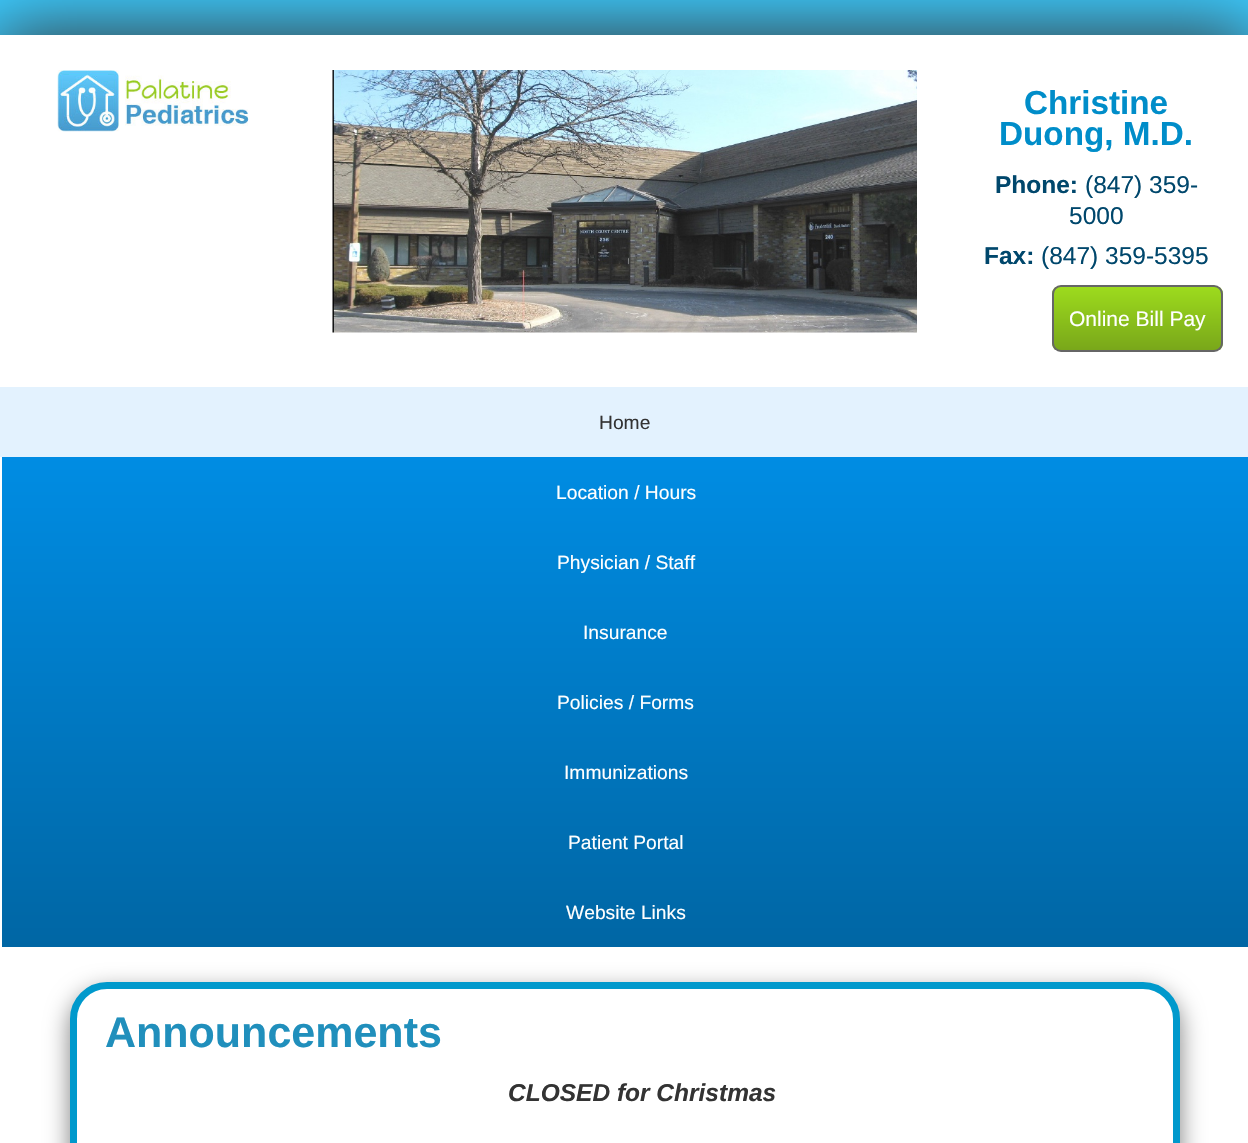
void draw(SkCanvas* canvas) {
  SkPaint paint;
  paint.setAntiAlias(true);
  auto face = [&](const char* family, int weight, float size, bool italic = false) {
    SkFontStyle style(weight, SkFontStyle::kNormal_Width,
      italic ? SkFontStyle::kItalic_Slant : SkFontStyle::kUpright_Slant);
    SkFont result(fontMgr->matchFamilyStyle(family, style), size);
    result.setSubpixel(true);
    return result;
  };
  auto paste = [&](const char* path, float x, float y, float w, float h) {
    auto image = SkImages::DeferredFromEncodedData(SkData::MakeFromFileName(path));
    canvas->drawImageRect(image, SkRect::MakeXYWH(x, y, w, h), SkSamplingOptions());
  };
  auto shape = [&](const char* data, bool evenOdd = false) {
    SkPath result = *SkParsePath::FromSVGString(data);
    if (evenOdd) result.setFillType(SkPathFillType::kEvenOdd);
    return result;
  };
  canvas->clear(0xffffffff);
  {
    const SkColor colors[] = {0xff3acafe, 0xff00476c};
    const float stops[] = {0, 1};
    const SkPoint ends[] = {{625, 0}, {625, 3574}};
    paint.setShader(SkGradientShader::MakeLinear(ends, colors, stops, 2, SkTileMode::kClamp));
    paint.setAlpha(255);
  }
  canvas->drawRect(SkRect::MakeXYWH(0, 0, 1248, 35), paint);
  paint.setShader(nullptr);
  paint.setColor(0xff353535);
  paint.setMaskFilter(SkMaskFilter::MakeBlur(kNormal_SkBlurStyle, 35));
  canvas->drawRect(SkRect::MakeXYWH(-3, 32, 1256, 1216), paint);
  paint.setMaskFilter(nullptr);
  paint.setColor(0xffffffff);
  canvas->drawRect(SkRect::MakeXYWH(0, 35, 1248, 1108), paint);
  paste("img/1.png", 57, 70, 192, 62);
  paste("img/2.png", 332, 70, 585, 263);
  canvas->save();
  canvas->clipPath(shape("M1061 285H1214C1219 285 1223 289 1223 294V343C1223 348 1219 352 1214 352H1061C1056 352 1052 348 1052 343V294C1052 289 1056 285 1061 285Z"), true);
  {
    const SkColor colors[] = {0xff9ddb1d, 0xff79a71a};
    const float stops[] = {0, 1};
    const SkPoint ends[] = {{1138, 287}, {1138, 350}};
    paint.setShader(SkGradientShader::MakeLinear(ends, colors, stops, 2, SkTileMode::kClamp));
    paint.setAlpha(255);
  }
  canvas->drawRect(SkRect::MakeXYWH(1052, 287, 171, 63), paint);
  canvas->restore();
  paint.setStroke(true);
  paint.setStrokeWidth(2);
  paint.setShader(nullptr);
  paint.setColor(0xff666666);
  canvas->drawRoundRect(SkRect::MakeXYWH(1053, 286, 169, 65), 8, 8, paint);
  paint.setStroke(false);
  {
    const SkColor colors[] = {0xff0092ec, 0xff0066a4};
    const float stops[] = {0, 1};
    const SkPoint ends[] = {{625, 387}, {625, 947}};
    paint.setShader(SkGradientShader::MakeLinear(ends, colors, stops, 2, SkTileMode::kClamp));
    paint.setAlpha(255);
  }
  canvas->drawRect(SkRect::MakeXYWH(2, 457, 1246, 490), paint);
  paint.setShader(nullptr);
  paint.setColor(0xffe3f2fe);
  canvas->drawRect(SkRect::MakeXYWH(0, 387, 1248, 70), paint);
  paint.setColor(0x80000000);
  paint.setMaskFilter(SkMaskFilter::MakeBlur(kNormal_SkBlurStyle, 12));
  canvas->drawRoundRect(SkRect::MakeXYWH(70, 991, 1110, 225), 37, 37, paint);
  paint.setMaskFilter(nullptr);
  paint.setColor(0xffffffff);
  canvas->drawRoundRect(SkRect::MakeXYWH(73.5f, 985.5f, 1103, 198), 33.5f, 33.5f, paint);
  paint.setStroke(true);
  paint.setStrokeWidth(7);
  paint.setColor(0xff0099cc);
  canvas->drawRoundRect(SkRect::MakeXYWH(73.5f, 985.5f, 1103, 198), 33.5f, 33.5f, paint);
  auto f0 = face("Liberation Sans", 700, 33.25f);
  paint.setStroke(false);
  paint.setColor(0xff008dc9);
  canvas->drawString("Christine", 1024, 114, f0, paint);
  canvas->drawString("Duong, M.D.", 999, 145, f0, paint);
  auto f1 = face("Liberation Sans", 700, 24.5f);
  paint.setColor(0xff00476c);
  canvas->drawString("Phone:", 995, 193, f1, paint);
  auto f2 = face("Liberation Sans", 400, 24.5f);
  canvas->drawString("(847) 359-", 1085, 193, f2, paint);
  canvas->drawString("5000", 1069, 224, f2, paint);
  canvas->drawString("Fax:", 984, 264, f1, paint);
  canvas->drawString("(847) 359-5395", 1041, 264, f2, paint);
  auto f3 = face("Liberation Sans", 400, 21);
  paint.setColor(0xffffffff);
  canvas->drawString("Online Bill Pay", 1069, 326, f3, paint);
  auto f4 = face("Liberation Sans", 400, 19.25f);
  paint.setColor(0xff333333);
  canvas->drawString("Home", 599, 429, f4, paint);
  paint.setColor(0xffffffff);
  {
    const struct { const char* s; float x, y; } items[] = {
      {"Location / Hours", 556, 499},
      {"Physician / Staff", 557, 569},
      {"Insurance", 583, 639},
      {"Policies / Forms", 557, 709},
      {"Immunizations", 564, 779},
      {"Patient Portal", 568, 849},
      {"Website Links", 566, 919},
    };
    for (auto [s, x, y] : items) {
      canvas->drawString(s, x, y, f4, paint);
    }
  }
  auto f5 = face("Liberation Sans", 700, 43);
  paint.setColor(0xff208fbc);
  canvas->drawString("Announcements", 105, 1047, f5, paint);
  auto f6 = face("Liberation Sans", 700, 24.5f, true);
  paint.setColor(0xff333333);
  canvas->drawString("CLOSED for Christmas", 508, 1101, f6, paint);
}
